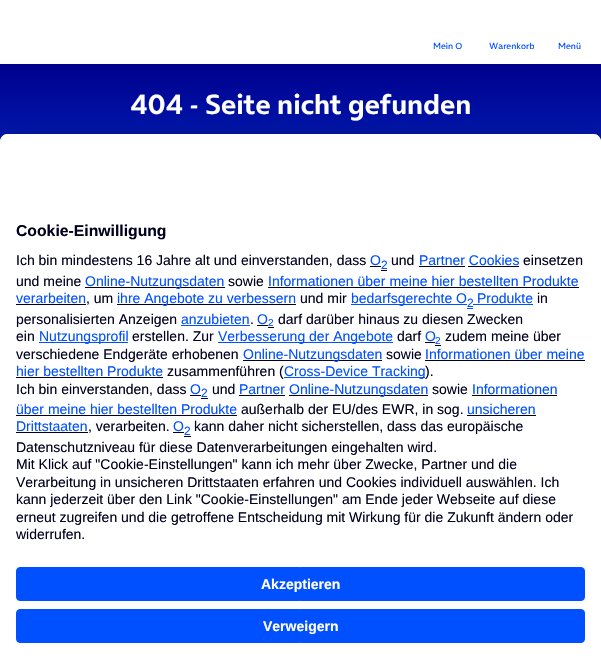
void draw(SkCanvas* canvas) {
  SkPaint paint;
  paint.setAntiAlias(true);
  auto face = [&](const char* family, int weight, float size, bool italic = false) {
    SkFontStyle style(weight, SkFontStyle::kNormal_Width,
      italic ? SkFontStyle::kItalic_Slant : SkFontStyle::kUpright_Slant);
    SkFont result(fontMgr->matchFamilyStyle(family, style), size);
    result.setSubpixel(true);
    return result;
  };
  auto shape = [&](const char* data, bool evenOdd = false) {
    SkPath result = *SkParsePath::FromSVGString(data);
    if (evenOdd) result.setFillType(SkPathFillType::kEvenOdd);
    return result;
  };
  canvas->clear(0xffffffff);
  {
    const SkColor colors[] = {0xff00008c, 0xff0050ff, 0xff246cff};
    const float stops[] = {0, 0.83f, 1};
    const SkPoint ends[] = {{301, 64}, {301, 372}};
    paint.setShader(SkGradientShader::MakeLinear(ends, colors, stops, 3, SkTileMode::kClamp));
    paint.setAlpha(255);
  }
  canvas->drawRect(SkRect::MakeXYWH(0, 64, 601, 78), paint);
  paint.setShader(nullptr);
  paint.setColor(0x4d000000);
  paint.setMaskFilter(SkMaskFilter::MakeBlur(kNormal_SkBlurStyle, 14));
  canvas->drawRoundRect(SkRect::MakeXYWH(0, 154, 601, 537), 8, 8, paint);
  paint.setMaskFilter(nullptr);
  paint.setColor(0x38000000);
  paint.setMaskFilter(SkMaskFilter::MakeBlur(kNormal_SkBlurStyle, 13));
  canvas->drawRoundRect(SkRect::MakeXYWH(0, 139, 601, 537), 8, 8, paint);
  paint.setMaskFilter(nullptr);
  paint.setColor(0xffffffff);
  canvas->drawPath(shape("M8 134H593C597.5 134 601 137.5 601 142V671H0V142C0 137.5 3.5 134 8 134Z"), paint);
  canvas->drawPath(shape("M8 134H593C597.5 134 601 137.5 601 142V555H0V142C0 137.5 3.5 134 8 134Z"), paint);
  {
    const struct { float x, y, w, h; SkColor color; } items[] = {
      {370, 266, 11, 1, 0xff00001e},
      {381, 270, 6, 1, 0xff00001e},
      {419, 266, 46, 1, 0xff00001e},
      {468, 266, 51, 1, 0xff00001e},
      {85, 287, 140, 1, 0xff00001e},
      {268, 287, 311, 1, 0xff00001e},
      {16, 304, 70, 1, 0xff00001e},
      {117, 304, 179, 1, 0xff00001e},
      {351, 304, 116, 1, 0xff0050ff},
      {467, 308, 6, 1, 0xff0050ff},
      {473, 304, 60, 1, 0xff0050ff},
      {181, 325, 69, 1, 0xff0050ff},
      {257, 325, 11, 1, 0xff00001e},
      {268, 327, 6, 1, 0xff00001e},
      {39, 342, 89, 1, 0xff0050ff},
      {218, 342, 175, 1, 0xff0050ff},
      {425, 342, 10, 1, 0xff00001e},
      {435, 345, 6, 1, 0xff00001e},
      {243, 360, 139, 1, 0xff00001e},
      {425, 360, 160, 1, 0xff00001e},
      {16, 377, 147, 1, 0xff00001e},
      {284, 377, 141, 1, 0xff0050ff},
      {190, 395, 11, 1, 0xff00001e},
      {201, 398, 7, 1, 0xff00001e},
      {239, 395, 46, 1, 0xff00001e},
      {289, 395, 139, 1, 0xff00001e},
      {472, 395, 85, 1, 0xff00001e},
      {16, 415, 221, 1, 0xff00001e},
      {467, 415, 69, 1, 0xff00001e},
      {16, 432, 72, 1, 0xff00001e},
      {173, 432, 11, 1, 0xff00001e},
      {184, 436, 7, 1, 0xff00001e},
    };
    for (auto [x, y, w, h, color] : items) {
      paint.setColor(color);
      canvas->drawRect(SkRect::MakeXYWH(x, y, w, h), paint);
    }
  }
  paint.setColor(0xff0050ff);
  canvas->drawRoundRect(SkRect::MakeXYWH(16.5f, 567.5f, 568, 33), 3.5f, 3.5f, paint);
  paint.setStroke(true);
  paint.setStrokeWidth(1);
  canvas->drawRoundRect(SkRect::MakeXYWH(16.5f, 567.5f, 568, 33), 3.5f, 3.5f, paint);
  paint.setStroke(false);
  canvas->drawRoundRect(SkRect::MakeXYWH(16.5f, 609.5f, 568, 33), 3.5f, 3.5f, paint);
  paint.setStroke(true);
  canvas->drawRoundRect(SkRect::MakeXYWH(16.5f, 609.5f, 568, 33), 3.5f, 3.5f, paint);
  auto f0 = face("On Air", 400, 9);
  paint.setStroke(false);
  {
    const struct { const char* s; float x, y; } items[] = {
      {"Mein O", 433, 49},
      {"Warenkorb", 489, 49},
      {"Menü", 558, 49},
    };
    for (auto [s, x, y] : items) {
      canvas->drawString(s, x, y, f0, paint);
    }
  }
  auto f1 = face("On Air", 700, 28);
  paint.setColor(0xffffffff);
  canvas->drawString("404 - Seite nicht gefunden", 130, 114, f1, paint);
  auto f2 = face("Liberation Sans", 700, 15.75f);
  paint.setColor(0xff00001e);
  canvas->drawString("Cookie-Einwilligung", 16, 236, f2, paint);
  auto f3 = face("Liberation Sans", 400, 14);
  canvas->drawString("Ich bin mindestens 16 Jahre alt und einverstanden, dass", 16, 265, f3, paint);
  paint.setColor(0xff0050ff);
  canvas->drawString("O", 370, 265, f3, paint);
  auto f4 = face("Liberation Sans", 400, 12);
  canvas->drawString("2", 381, 269, f4, paint);
  paint.setColor(0xff00001e);
  canvas->drawString("und", 391, 265, f3, paint);
  paint.setColor(0xff0050ff);
  canvas->drawString("Partner Cookies", 419, 265, f3, paint);
  paint.setColor(0xff00001e);
  canvas->drawString("einsetzen", 523, 265, f3, paint);
  canvas->drawString("und meine", 16, 286, f3, paint);
  paint.setColor(0xff0050ff);
  canvas->drawString("Online-Nutzungsdaten", 85, 286, f3, paint);
  paint.setColor(0xff00001e);
  canvas->drawString("sowie", 228, 286, f3, paint);
  paint.setColor(0xff0050ff);
  canvas->drawString("Informationen über meine hier bestellten Produkte", 268, 286, f3, paint);
  canvas->drawString("verarbeiten", 16, 303, f3, paint);
  paint.setColor(0xff00001e);
  canvas->drawString(", um", 86, 303, f3, paint);
  paint.setColor(0xff0050ff);
  canvas->drawString("ihre Angebote zu verbessern", 117, 303, f3, paint);
  paint.setColor(0xff00001e);
  canvas->drawString("und mir", 300, 303, f3, paint);
  paint.setColor(0xff0050ff);
  canvas->drawString("bedarfsgerechte O", 351, 303, f3, paint);
  canvas->drawString("2", 467, 307, f4, paint);
  canvas->drawString("Produkte", 477, 303, f3, paint);
  paint.setColor(0xff00001e);
  canvas->drawString("in", 537, 303, f3, paint);
  canvas->drawString("personalisierten Anzeigen", 16, 324, f3, paint);
  paint.setColor(0xff0050ff);
  canvas->drawString("anzubieten", 181, 324, f3, paint);
  paint.setColor(0xff00001e);
  canvas->drawString(".", 250, 324, f3, paint);
  paint.setColor(0xff0050ff);
  canvas->drawString("O", 257, 324, f3, paint);
  auto f5 = face("Liberation Sans", 400, 10);
  canvas->drawString("2", 268, 326, f5, paint);
  paint.setColor(0xff00001e);
  canvas->drawString("darf darüber hinaus zu diesen Zwecken", 278, 324, f3, paint);
  canvas->drawString("ein", 16, 341, f3, paint);
  paint.setColor(0xff0050ff);
  canvas->drawString("Nutzungsprofil", 39, 341, f3, paint);
  paint.setColor(0xff00001e);
  canvas->drawString("erstellen. Zur", 132, 341, f3, paint);
  paint.setColor(0xff0050ff);
  canvas->drawString("Verbesserung der Angebote", 218, 341, f3, paint);
  paint.setColor(0xff00001e);
  canvas->drawString("darf", 397, 341, f3, paint);
  paint.setColor(0xff0050ff);
  canvas->drawString("O", 425, 341, f3, paint);
  canvas->drawString("2", 435, 344, f5, paint);
  paint.setColor(0xff00001e);
  canvas->drawString("zudem meine über", 445, 341, f3, paint);
  canvas->drawString("verschiedene Endgeräte erhobenen", 16, 359, f3, paint);
  paint.setColor(0xff0050ff);
  canvas->drawString("Online-Nutzungsdaten", 243, 359, f3, paint);
  paint.setColor(0xff00001e);
  canvas->drawString("sowie", 386, 359, f3, paint);
  paint.setColor(0xff0050ff);
  canvas->drawString("Informationen über meine", 425, 359, f3, paint);
  canvas->drawString("hier bestellten Produkte", 16, 376, f3, paint);
  paint.setColor(0xff00001e);
  canvas->drawString("zusammenführen (", 167, 376, f3, paint);
  paint.setColor(0xff0050ff);
  canvas->drawString("Cross-Device Tracking", 284, 376, f3, paint);
  paint.setColor(0xff00001e);
  canvas->drawString(").", 425, 376, f3, paint);
  canvas->drawString("Ich bin einverstanden, dass", 16, 394, f3, paint);
  paint.setColor(0xff0050ff);
  canvas->drawString("O", 190, 394, f3, paint);
  canvas->drawString("2", 201, 397, f4, paint);
  paint.setColor(0xff00001e);
  canvas->drawString("und", 212, 394, f3, paint);
  paint.setColor(0xff0050ff);
  canvas->drawString("Partner", 239, 394, f3, paint);
  canvas->drawString("Online-Nutzungsdaten", 289, 394, f3, paint);
  paint.setColor(0xff00001e);
  canvas->drawString("sowie", 432, 394, f3, paint);
  paint.setColor(0xff0050ff);
  canvas->drawString("Informationen", 472, 394, f3, paint);
  canvas->drawString("über meine hier bestellten Produkte", 16, 414, f3, paint);
  paint.setColor(0xff00001e);
  canvas->drawString("außerhalb der EU/des EWR, in sog.", 241, 414, f3, paint);
  paint.setColor(0xff0050ff);
  canvas->drawString("unsicheren", 467, 414, f3, paint);
  canvas->drawString("Drittstaaten", 16, 431, f3, paint);
  paint.setColor(0xff00001e);
  canvas->drawString(", verarbeiten.", 88, 431, f3, paint);
  paint.setColor(0xff0050ff);
  canvas->drawString("O", 173, 431, f3, paint);
  canvas->drawString("2", 184, 435, f4, paint);
  paint.setColor(0xff00001e);
  {
    const struct { const char* s; float x, y; } items[] = {
      {"kann daher nicht sicherstellen, dass das europäische", 194, 431},
      {"Datenschutzniveau für diese Datenverarbeitungen eingehalten wird.", 16, 452},
      {"Mit Klick auf \"Cookie-Einstellungen\" kann ich mehr über Zwecke, Partner und die", 16, 469},
      {"Verarbeitung in unsicheren Drittstaaten erfahren und Cookies individuell auswählen. Ich", 16, 487},
      {"kann jederzeit über den Link \"Cookie-Einstellungen\" am Ende jeder Webseite auf diese", 16, 504},
      {"erneut zugreifen und die getroffene Entscheidung mit Wirkung für die Zukunft ändern oder", 16, 522},
      {"widerrufen.", 16, 539},
    };
    for (auto [s, x, y] : items) {
      canvas->drawString(s, x, y, f3, paint);
    }
  }
  auto f6 = face("Liberation Sans", 700, 14);
  paint.setColor(0xffffffff);
  canvas->drawString("Akzeptieren", 261, 589, f6, paint);
  canvas->drawString("Verweigern", 263, 631, f6, paint);
}
